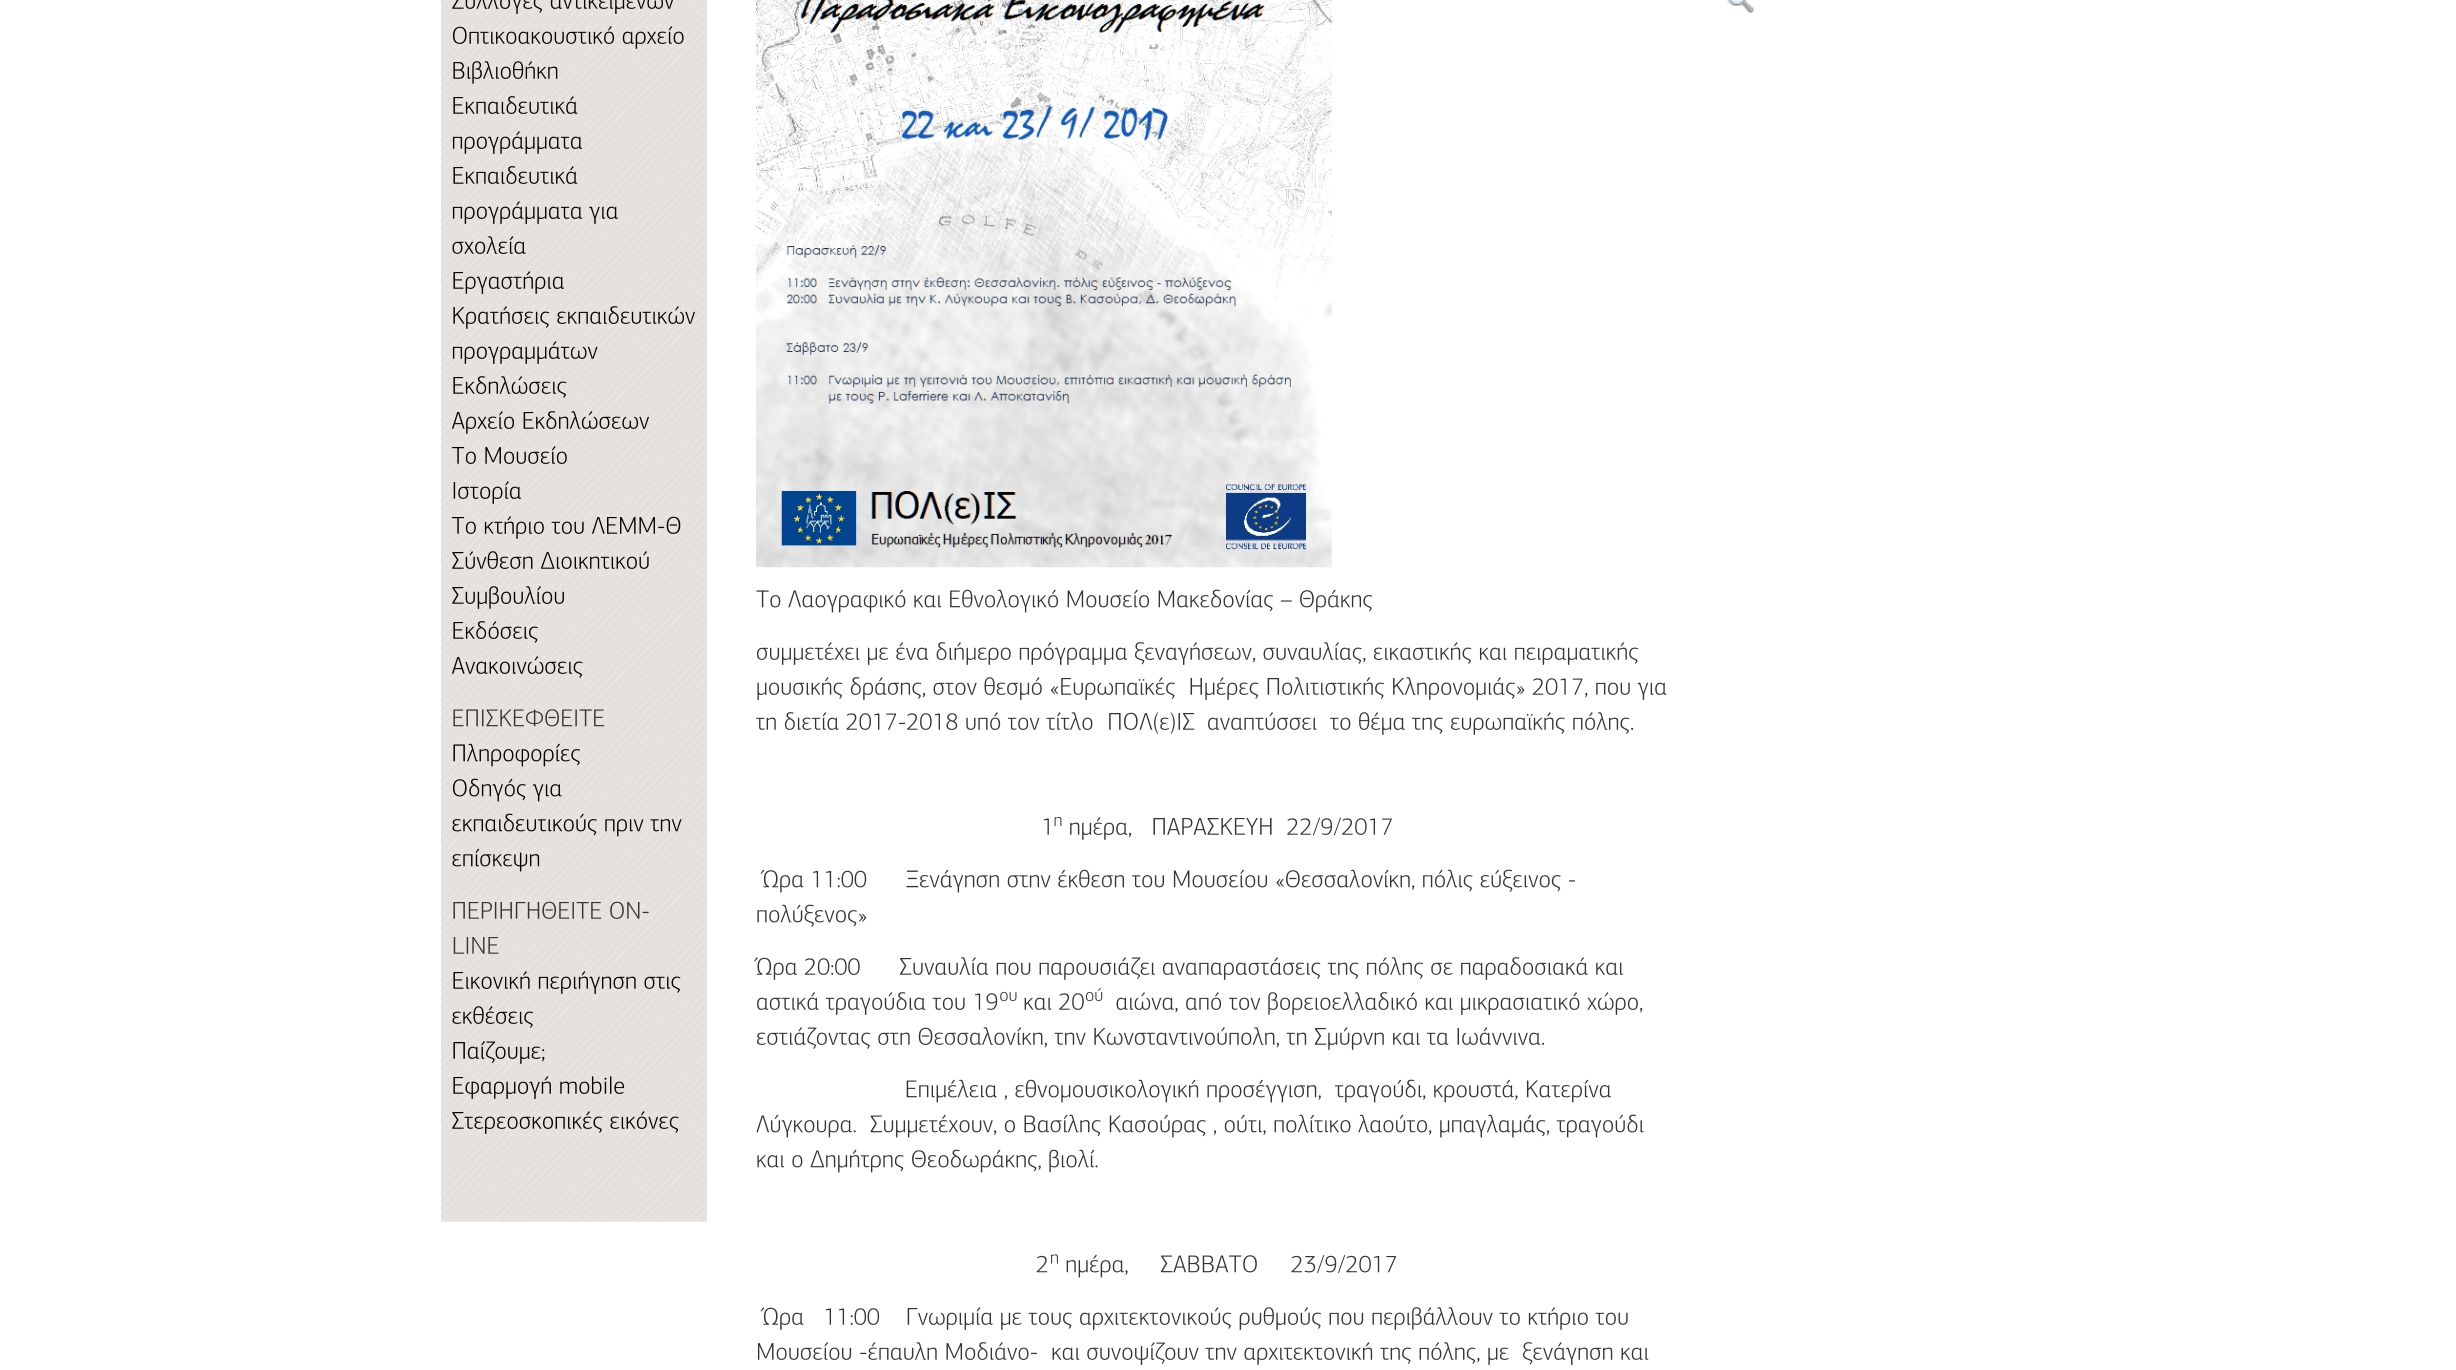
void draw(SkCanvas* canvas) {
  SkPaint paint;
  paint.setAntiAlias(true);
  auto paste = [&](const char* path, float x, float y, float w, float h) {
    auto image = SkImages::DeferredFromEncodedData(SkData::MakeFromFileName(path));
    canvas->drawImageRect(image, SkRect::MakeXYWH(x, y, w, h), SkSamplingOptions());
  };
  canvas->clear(0xffffffff);
  paste("img/1.png", 441, 0, 266, 1222);
  paste("img/2.png", 452, 0, 221, 14);
  paste("img/3.png", 453, 26, 231, 23);
  paste("img/4.png", 453, 61, 105, 23);
  paste("img/5.png", 453, 96, 125, 18);
  paste("img/6.png", 452, 131, 131, 23);
  paste("img/5.png", 453, 166, 125, 18);
  paste("img/7.png", 452, 201, 166, 23);
  paste("img/8.png", 452, 236, 74, 18);
  paste("img/9.png", 453, 271, 111, 23);
  paste("img/10.png", 453, 306, 242, 23);
  paste("img/11.png", 452, 341, 146, 23);
  paste("img/12.png", 453, 376, 114, 22);
  paste("img/13.png", 451, 411, 198, 23);
  paste("img/14.png", 451, 446, 116, 18);
  paste("img/15.png", 453, 481, 69, 23);
  paste("img/16.png", 451, 516, 230, 23);
  paste("img/17.png", 452, 551, 197, 18);
  paste("img/18.png", 452, 586, 112, 23);
  paste("img/19.png", 453, 621, 85, 22);
  paste("img/20.png", 451, 656, 132, 22);
  paste("img/21.png", 453, 709, 152, 18);
  paste("img/22.png", 453, 743, 128, 24);
  paste("img/23.png", 453, 778, 109, 24);
  paste("img/24.png", 452, 813, 230, 24);
  paste("img/25.png", 452, 848, 88, 24);
  paste("img/26.png", 453, 901, 196, 18);
  paste("img/27.png", 453, 937, 46, 17);
  paste("img/28.png", 453, 971, 228, 23);
  paste("img/29.png", 452, 1006, 82, 22);
  paste("img/30.png", 453, 1041, 92, 23);
  paste("img/31.png", 453, 1076, 171, 23);
  paste("img/32.png", 452, 1111, 227, 23);
  paste("img/33.png", 756, 0, 576, 568);
  paste("img/34.png", 756, 589, 617, 24);
  paste("img/35.png", 757, 642, 881, 23);
  paste("img/36.png", 757, 677, 910, 23);
  paste("img/37.png", 756, 712, 337, 18);
  paste("img/38.png", 1109, 712, 86, 22);
  paste("img/39.png", 1208, 712, 426, 23);
  paste("img/40.png", 1043, 818, 6, 17);
  paste("img/41.png", 1054, 816, 8, 10);
  paste("img/42.png", 1070, 817, 62, 23);
  paste("img/43.png", 1153, 817, 239, 19);
  paste("img/44.png", 760, 869, 816, 24);
  paste("img/45.png", 757, 904, 110, 23);
  paste("img/46.png", 754, 957, 869, 23);
  paste("img/47.png", 757, 992, 241, 23);
  paste("img/48.png", 1000, 991, 17, 11);
  paste("img/49.png", 1024, 993, 60, 17);
  paste("img/50.png", 1085, 987, 18, 15);
  paste("img/51.png", 1116, 992, 527, 23);
  paste("img/52.png", 757, 1027, 788, 23);
  paste("img/53.png", 906, 1079, 705, 24);
  paste("img/54.png", 756, 1114, 888, 24);
  paste("img/55.png", 757, 1149, 341, 24);
  paste("img/56.png", 1036, 1255, 12, 18);
  paste("img/57.png", 1051, 1254, 7, 10);
  paste("img/58.png", 1066, 1254, 62, 24);
  paste("img/59.png", 1161, 1255, 235, 18);
  paste("img/60.png", 760, 1307, 868, 23);
  paste("img/61.png", 757, 1342, 892, 23);
  paste("img/62.png", 1727, 0, 27, 13);
}
